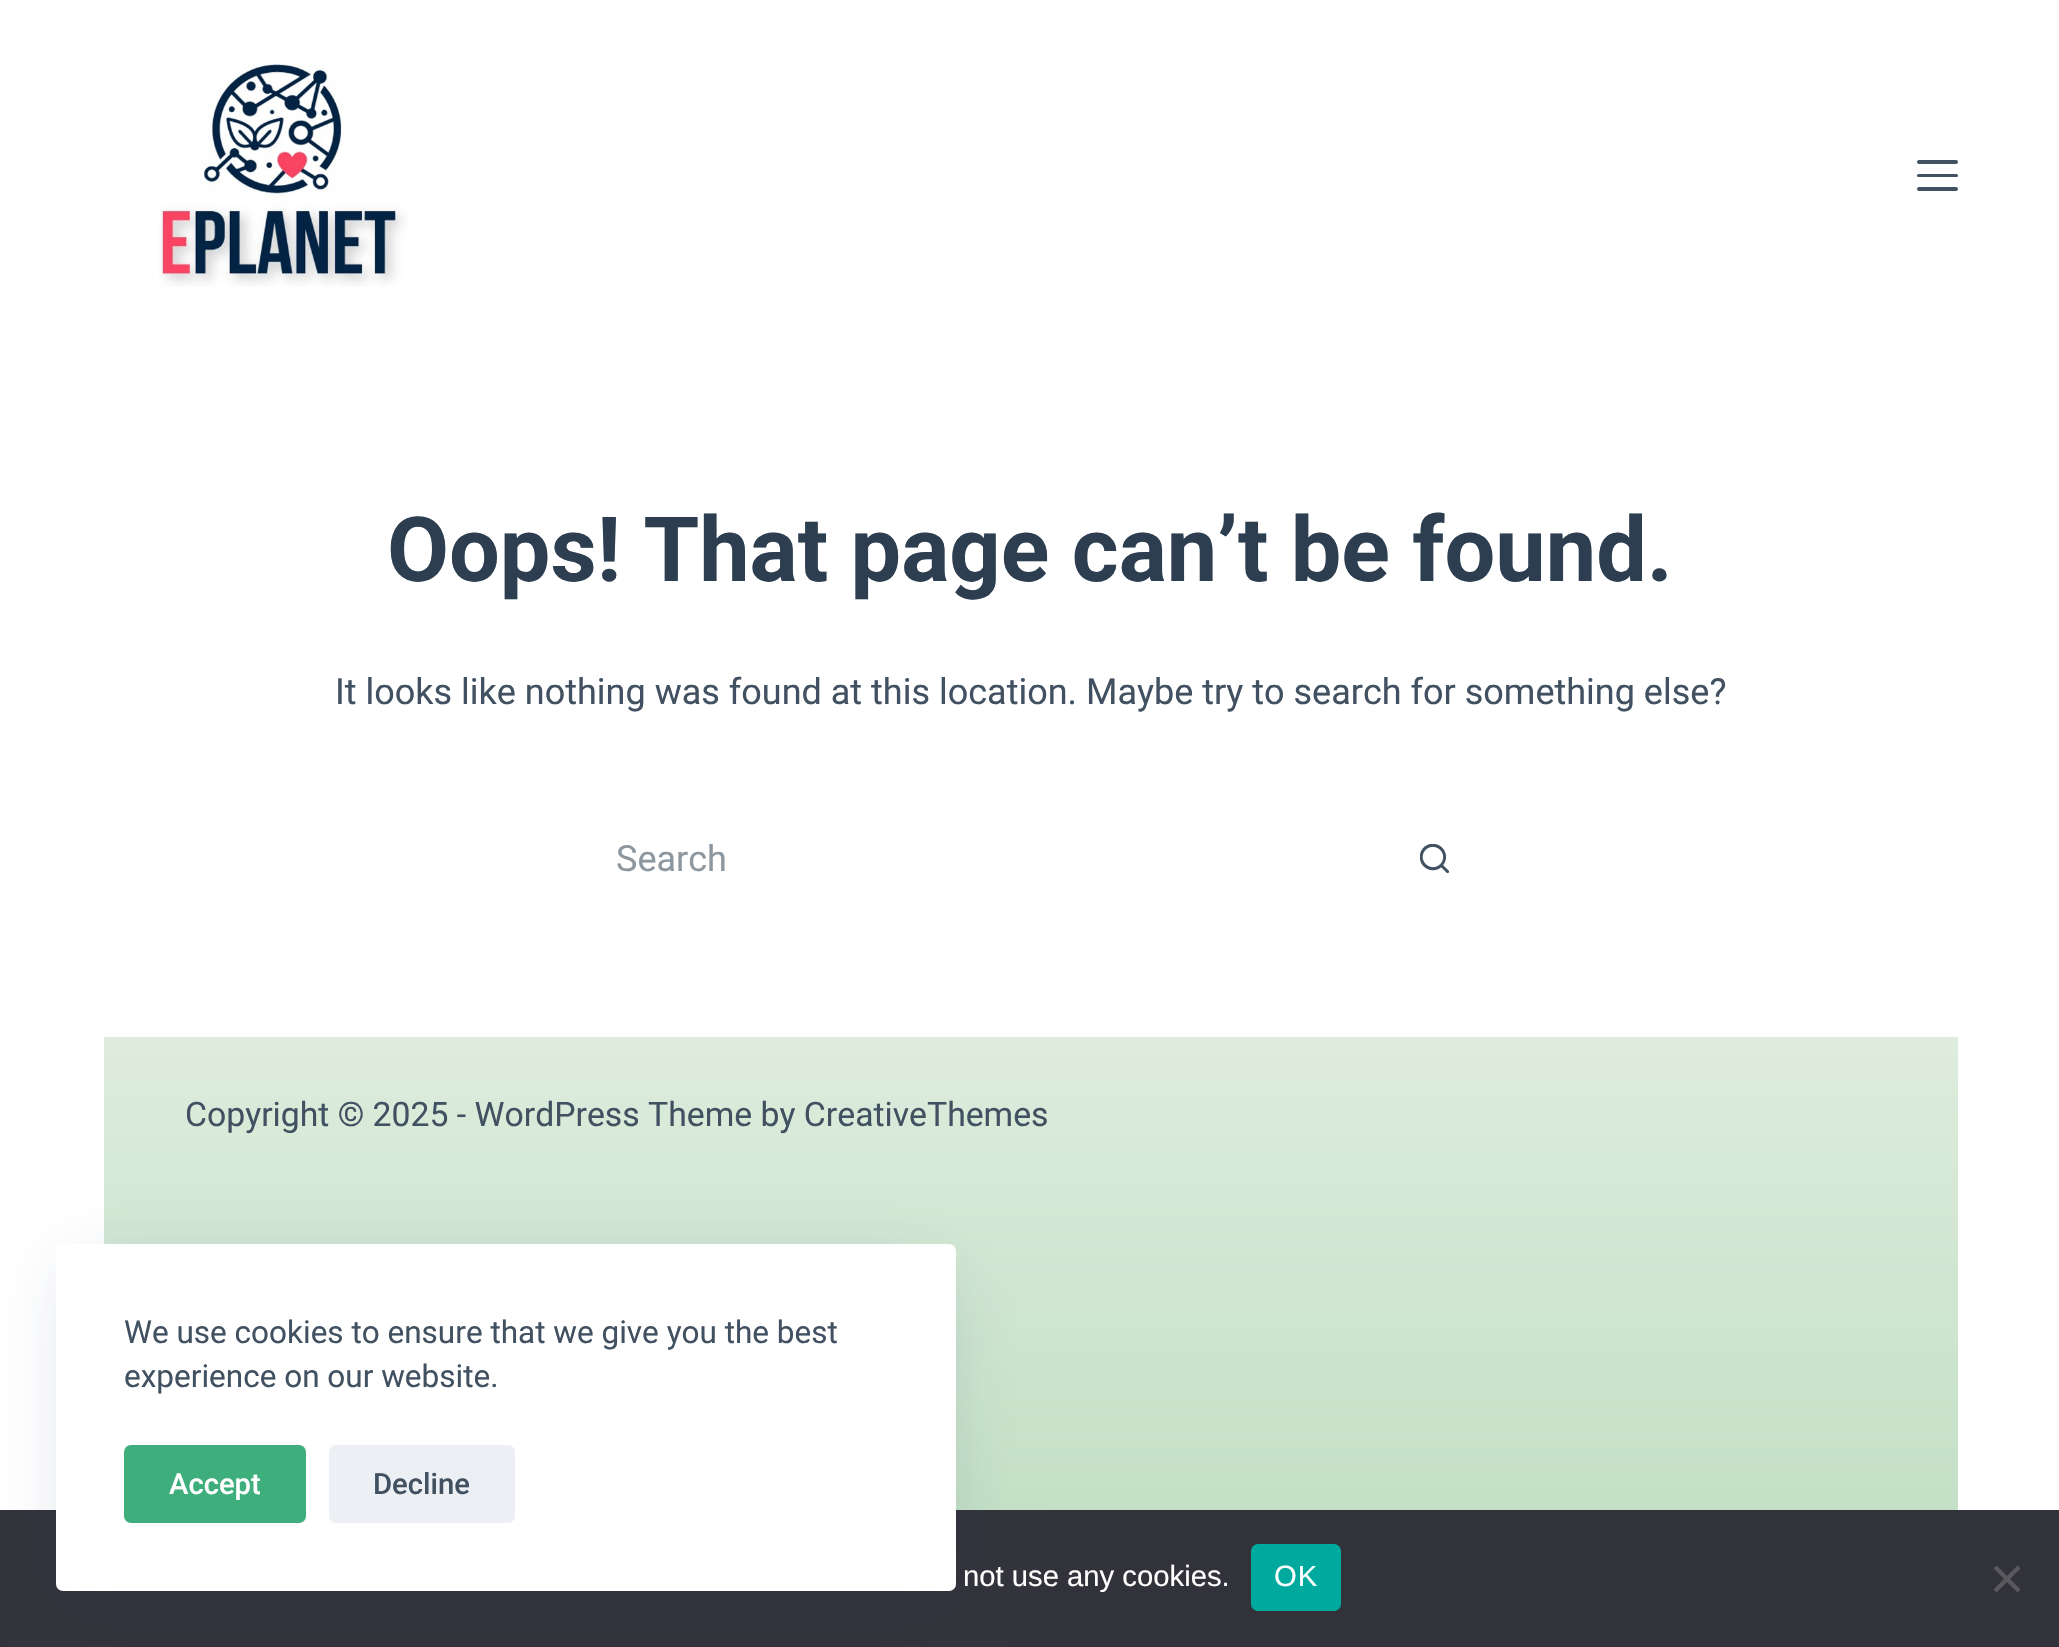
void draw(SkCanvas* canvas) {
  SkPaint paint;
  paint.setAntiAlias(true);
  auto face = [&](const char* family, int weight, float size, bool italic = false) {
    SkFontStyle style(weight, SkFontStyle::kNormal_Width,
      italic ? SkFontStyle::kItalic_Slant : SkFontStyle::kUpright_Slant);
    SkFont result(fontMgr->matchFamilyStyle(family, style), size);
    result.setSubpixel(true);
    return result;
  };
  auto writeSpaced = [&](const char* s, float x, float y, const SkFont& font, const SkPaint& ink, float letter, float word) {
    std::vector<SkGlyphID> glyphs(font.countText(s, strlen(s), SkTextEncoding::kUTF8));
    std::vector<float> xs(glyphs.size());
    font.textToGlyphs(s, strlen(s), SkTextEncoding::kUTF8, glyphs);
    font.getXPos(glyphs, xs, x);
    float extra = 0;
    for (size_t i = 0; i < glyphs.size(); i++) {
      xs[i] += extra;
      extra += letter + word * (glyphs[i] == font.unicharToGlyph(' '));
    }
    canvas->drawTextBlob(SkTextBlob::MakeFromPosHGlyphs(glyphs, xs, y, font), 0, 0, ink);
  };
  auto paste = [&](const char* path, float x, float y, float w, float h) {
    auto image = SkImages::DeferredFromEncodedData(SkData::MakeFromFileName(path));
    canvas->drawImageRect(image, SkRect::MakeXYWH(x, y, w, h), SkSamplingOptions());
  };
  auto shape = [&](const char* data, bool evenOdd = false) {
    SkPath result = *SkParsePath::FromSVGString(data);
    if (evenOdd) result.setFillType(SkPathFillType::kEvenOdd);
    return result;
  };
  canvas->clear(0xffffffff);
  paste("img/1.png", 159, 64, 249, 223);
  paint.setColor(0xff415161);
  canvas->drawRoundRect(SkRect::MakeXYWH(1917, 160, 41, 4), 2, 2, paint);
  canvas->drawRoundRect(SkRect::MakeXYWH(1917, 174, 41, 3), 1.5f, 1.5f, paint);
  canvas->drawRoundRect(SkRect::MakeXYWH(1917, 187, 41, 4), 2, 2, paint);
  paste("img/2.png", 1420, 844, 29, 29);
  {
    const SkColor colors[] = {0xffc1dfc4, 0xffdeecdd};
    const float stops[] = {0, 1};
    const SkPoint ends[] = {{1031, 1550}, {1031, 1037}};
    paint.setShader(SkGradientShader::MakeLinear(ends, colors, stops, 2, SkTileMode::kClamp));
    paint.setAlpha(255);
  }
  canvas->drawRect(SkRect::MakeXYWH(104, 1037, 1854, 473), paint);
  paint.setShader(nullptr);
  paint.setColor(0xff32323a);
  canvas->drawRect(SkRect::MakeXYWH(0, 1510, 2059, 137), paint);
  paint.setColor(0x26223865);
  paint.setMaskFilter(SkMaskFilter::MakeBlur(kNormal_SkBlurStyle, 34));
  canvas->drawRect(SkRect::MakeXYWH(68, 1267, 877, 324), paint);
  paint.setMaskFilter(nullptr);
  paint.setColor(0xffffffff);
  canvas->drawRoundRect(SkRect::MakeXYWH(56, 1244, 900, 347), 7, 7, paint);
  paint.setColor(0xff3eaf7c);
  canvas->drawRoundRect(SkRect::MakeXYWH(124, 1445, 182, 78), 7, 7, paint);
  paint.setColor(0xffeceff3);
  canvas->drawRoundRect(SkRect::MakeXYWH(329, 1445, 186, 78), 7, 7, paint);
  paint.setColor(0xff00a99d);
  canvas->drawRoundRect(SkRect::MakeXYWH(1251, 1544, 90, 67), 7, 7, paint);
  paint.setColor(0xff59595d);
  canvas->drawPath(shape("M2017.5 1565.5L2020.5 1568.5L1996.5 1592.5L1993.5 1589.5Z"), paint);
  canvas->drawPath(shape("M1993.5 1568.5L1996.5 1565.5L2020.5 1589.5L2017.5 1592.5Z"), paint);
  auto f0 = face("Roboto", 700, 90);
  paint.setColor(0xff2c3e50);
  canvas->drawString("Oops! That page can’t be found.", 387, 581, f0, paint);
  auto f1 = face("Roboto", 400, 36);
  paint.setColor(0xff415161);
  canvas->drawString("It looks like nothing was found at this location. Maybe try to search for something else?", 335, 704, f1, paint);
  paint.setColor(0xff8d97a0);
  canvas->drawString("Search", 616, 871, f1, paint);
  auto f2 = face("Roboto", 400, 33.75f);
  paint.setColor(0xff415161);
  canvas->drawString("Copyright © 2025 - WordPress Theme by CreativeThemes", 185, 1126, f2, paint);
  auto f3 = face("Roboto", 400, 31.5f);
  canvas->drawString("We use cookies to ensure that we give you the best", 124, 1343, f3, paint);
  canvas->drawString("experience on our website.", 124, 1387, f3, paint);
  auto f4 = face("Roboto", 500, 29.25f);
  paint.setColor(0xffffffff);
  canvas->drawString("Accept", 169, 1494, f4, paint);
  paint.setColor(0xff415161);
  canvas->drawString("Decline", 373, 1494, f4, paint);
  auto f5 = face("Liberation Sans", 400, 29.25f);
  paint.setColor(0xffffffff);
  canvas->drawString("not use any cookies.", 963, 1586, f5, paint);
  writeSpaced("OK", 1274, 1586, f5, paint, 1, 0);
}
